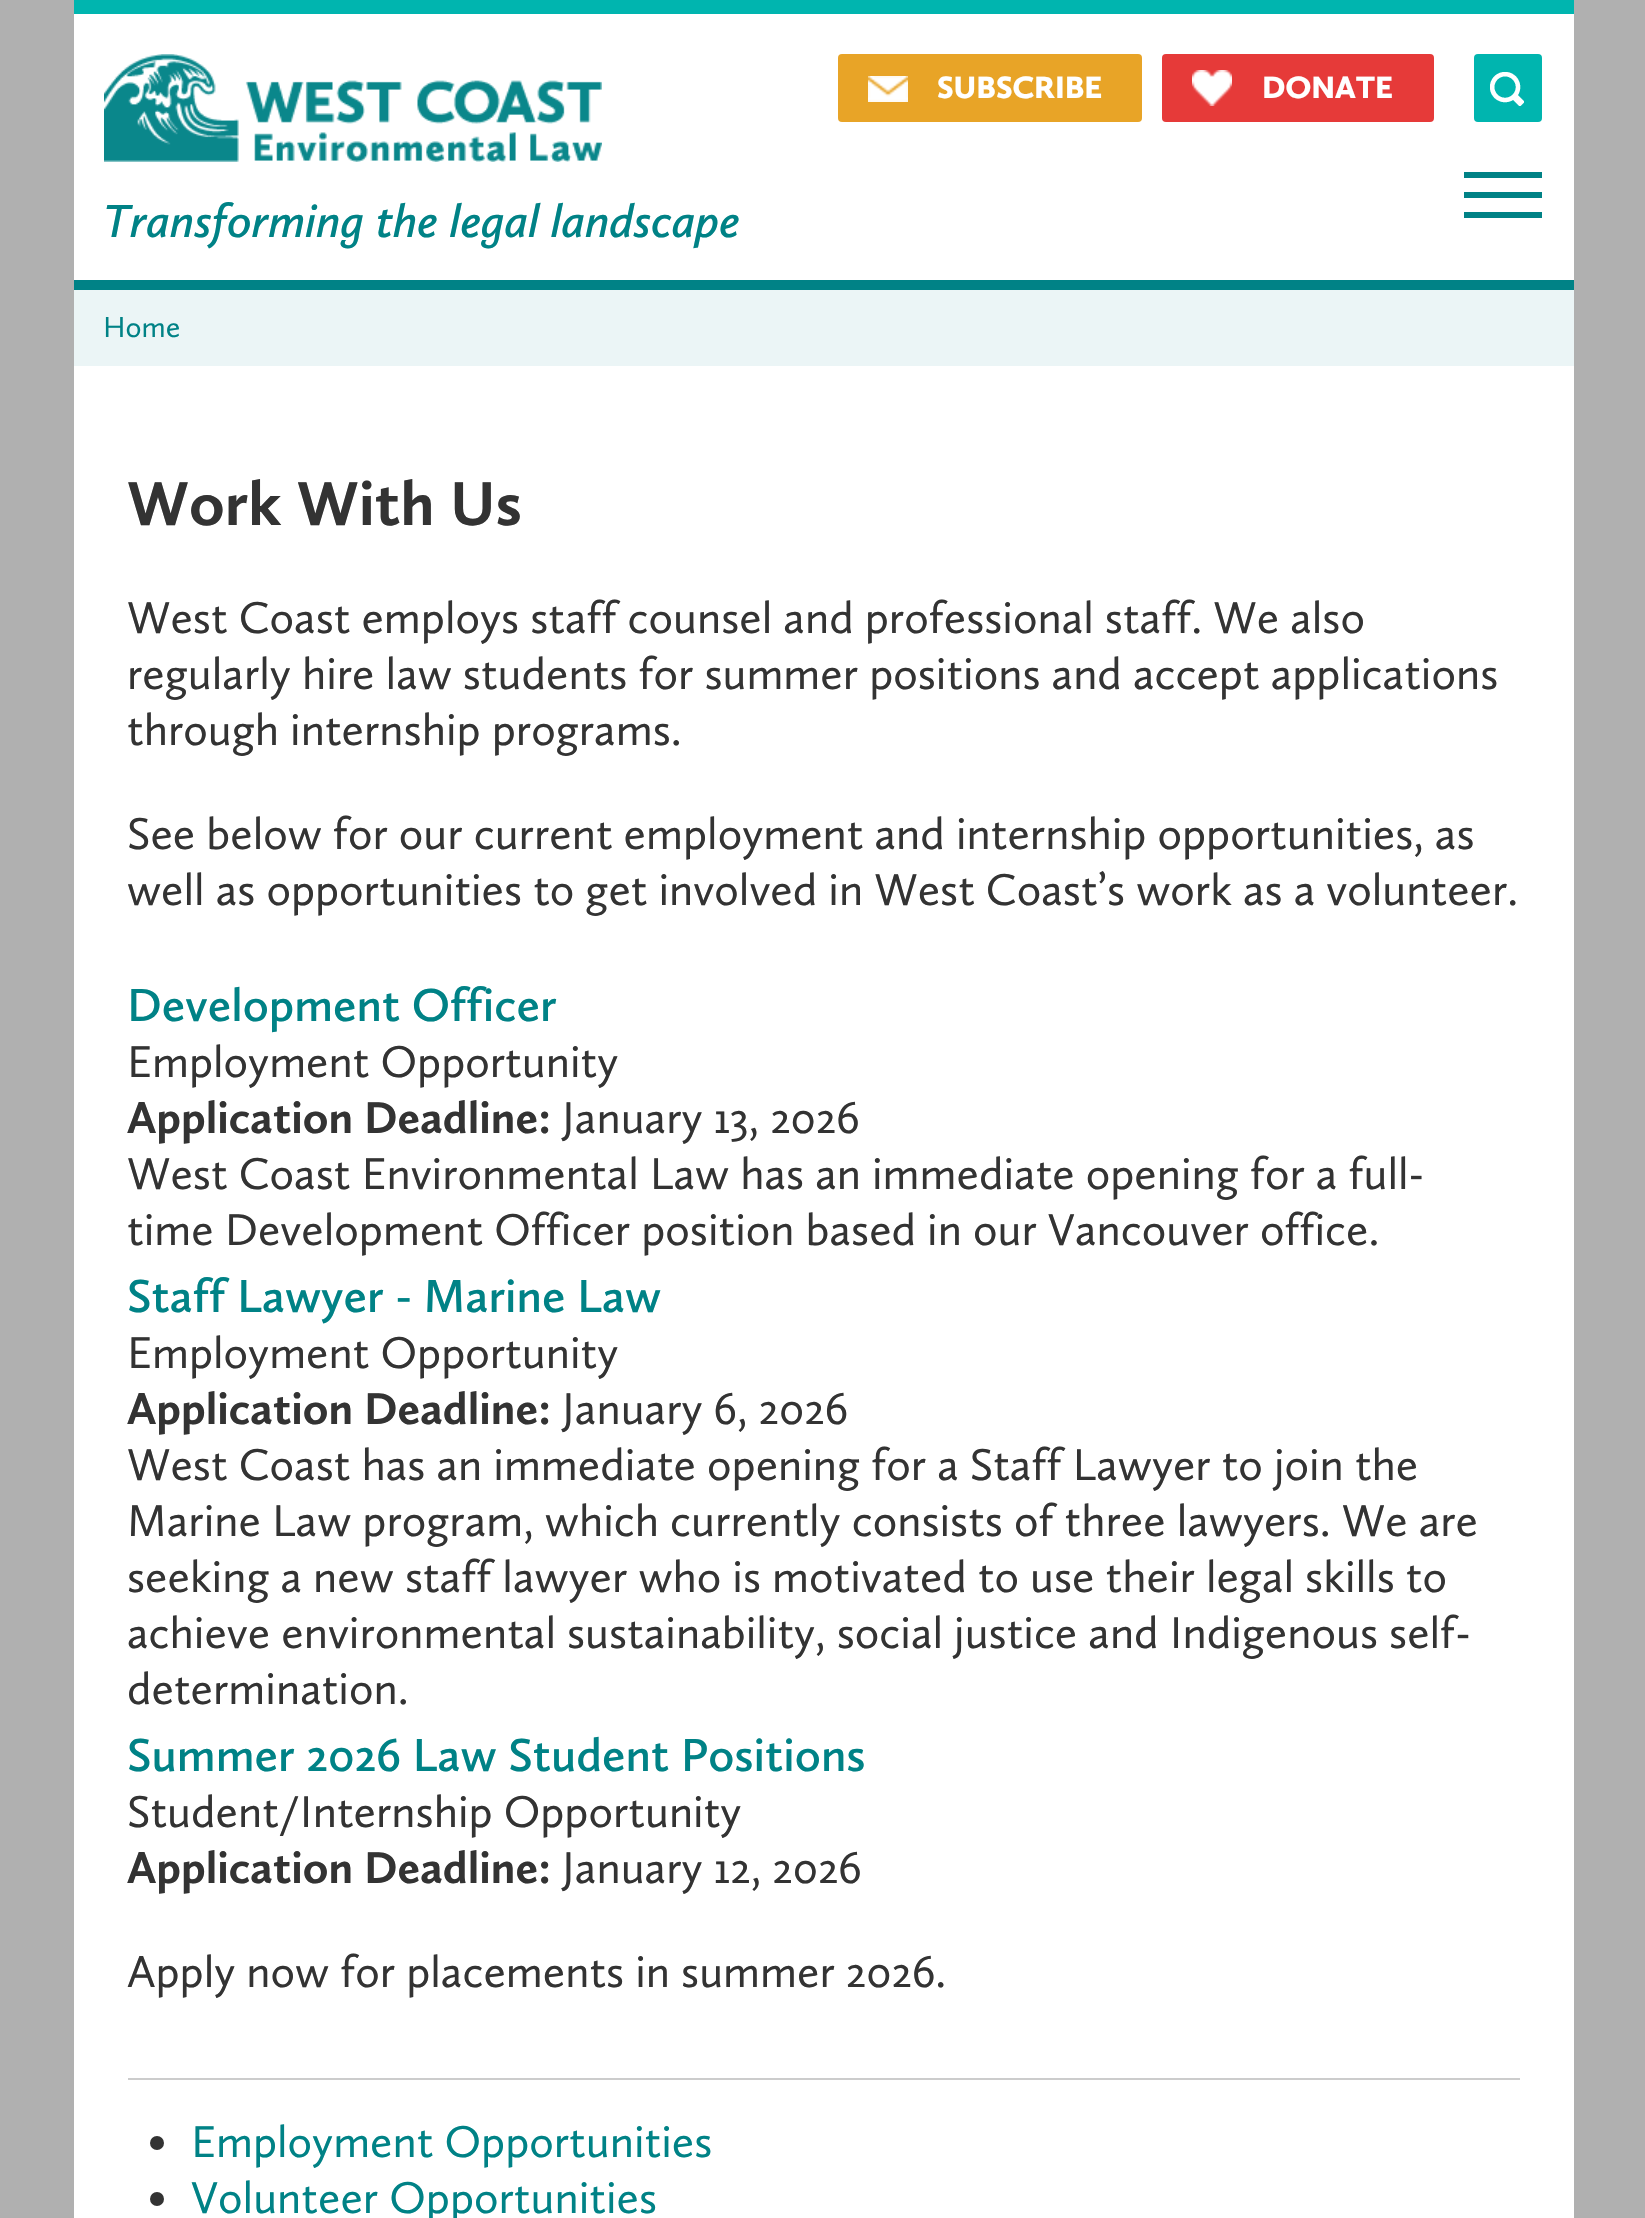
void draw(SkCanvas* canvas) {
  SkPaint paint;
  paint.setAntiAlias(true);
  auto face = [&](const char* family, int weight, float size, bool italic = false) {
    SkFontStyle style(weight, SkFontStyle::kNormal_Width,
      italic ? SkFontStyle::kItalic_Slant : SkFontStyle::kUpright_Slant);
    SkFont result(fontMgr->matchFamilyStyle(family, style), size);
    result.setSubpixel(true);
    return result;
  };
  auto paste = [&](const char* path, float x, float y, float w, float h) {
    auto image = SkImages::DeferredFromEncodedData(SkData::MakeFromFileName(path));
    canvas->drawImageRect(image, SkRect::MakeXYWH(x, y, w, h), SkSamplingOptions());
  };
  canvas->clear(0xffb0b0b0);
  {
    const struct { float x, y, w, h; SkColor color; } items[] = {
      {74, 14, 1500, 2204, 0xffffffff},
      {74, 0, 1500, 14, 0xff00b5af},
      {74, 280, 1500, 10, 0xff008286},
    };
    for (auto [x, y, w, h, color] : items) {
      paint.setColor(color);
      canvas->drawRect(SkRect::MakeXYWH(x, y, w, h), paint);
    }
  }
  paste("img/1.png", 104, 54, 498, 108);
  paint.setColor(0xffe8a427);
  canvas->drawRoundRect(SkRect::MakeXYWH(838, 54, 304, 68), 4, 4, paint);
  paste("img/2.png", 868, 76, 40, 26);
  paint.setColor(0xffe63a39);
  canvas->drawRoundRect(SkRect::MakeXYWH(1162, 54, 272, 68), 4, 4, paint);
  paste("img/3.png", 1192, 70, 40, 36);
  paint.setColor(0xff00b5af);
  canvas->drawRoundRect(SkRect::MakeXYWH(1474, 54, 68, 68), 4, 4, paint);
  paste("img/4.png", 1490, 72, 34, 34);
  {
    const struct { float x, y, w, h; SkColor color; } items[] = {
      {1464, 192, 78, 6, 0xff008286},
      {1464, 172, 78, 6, 0xff008286},
      {1464, 212, 78, 6, 0xff008286},
      {74, 290, 1500, 76, 0xffebf5f6},
      {128, 2078, 1392, 2, 0xffcccccc},
    };
    for (auto [x, y, w, h, color] : items) {
      paint.setColor(color);
      canvas->drawRect(SkRect::MakeXYWH(x, y, w, h), paint);
    }
  }
  paint.setColor(0xff333333);
  canvas->drawCircle(157, 2143, 7, paint);
  canvas->drawCircle(157, 2199, 7, paint);
  auto f0 = face("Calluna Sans", 900, 32);
  paint.setColor(0xffffffff);
  canvas->drawString("SUBSCRIBE", 937, 98, f0, paint);
  canvas->drawString("DONATE", 1262, 98, f0, paint);
  auto f1 = face("Calluna Sans", 600, 48, true);
  paint.setColor(0xff008286);
  canvas->drawString("Transforming the legal landscape", 103, 237, f1, paint);
  auto f2 = face("Calluna Sans", 400, 30);
  canvas->drawString("Home", 103, 337, f2, paint);
  auto f3 = face("Calluna Sans", 700, 64);
  paint.setColor(0xff333333);
  canvas->drawString("Work With Us", 127, 525, f3, paint);
  auto f4 = face("Calluna Sans", 400, 46);
  {
    const struct { const char* s; float x, y; } items[] = {
      {"West Coast employs staff counsel and professional staff. We also", 127, 633},
      {"regularly hire law students for summer positions and accept applications", 127, 689},
      {"through internship programs.", 127, 745},
      {"See below for our current employment and internship opportunities, as", 127, 849},
      {"well as opportunities to get involved in West Coast’s work as a volunteer.", 127, 905},
    };
    for (auto [s, x, y] : items) {
      canvas->drawString(s, x, y, f4, paint);
    }
  }
  auto f5 = face("Calluna Sans", 600, 48);
  paint.setColor(0xff008286);
  canvas->drawString("Development Officer", 127, 1021, f5, paint);
  paint.setColor(0xff333333);
  canvas->drawString("Employment Opportunity", 127, 1077, f4, paint);
  auto f6 = face("Calluna Sans", 700, 46);
  canvas->drawString("Application Deadline:", 127, 1133, f6, paint);
  {
    const struct { const char* s; float x, y; } items[] = {
      {"January 13, 2026", 562, 1133},
      {"West Coast Environmental Law has an immediate opening for a full-", 127, 1189},
      {"time Development Officer position based in our Vancouver office.", 127, 1245},
    };
    for (auto [s, x, y] : items) {
      canvas->drawString(s, x, y, f4, paint);
    }
  }
  paint.setColor(0xff008286);
  canvas->drawString("Staff Lawyer - Marine Law", 127, 1312, f5, paint);
  paint.setColor(0xff333333);
  canvas->drawString("Employment Opportunity", 127, 1368, f4, paint);
  canvas->drawString("Application Deadline:", 127, 1424, f6, paint);
  {
    const struct { const char* s; float x, y; } items[] = {
      {"January 6, 2026", 562, 1424},
      {"West Coast has an immediate opening for a Staff Lawyer to join the", 127, 1480},
      {"Marine Law program, which currently consists of three lawyers. We are", 127, 1536},
      {"seeking a new staff lawyer who is motivated to use their legal skills to", 127, 1592},
      {"achieve environmental sustainability, social justice and Indigenous self-", 127, 1648},
      {"determination.", 127, 1704},
    };
    for (auto [s, x, y] : items) {
      canvas->drawString(s, x, y, f4, paint);
    }
  }
  paint.setColor(0xff008286);
  canvas->drawString("Summer 2026 Law Student Positions", 127, 1771, f5, paint);
  paint.setColor(0xff333333);
  canvas->drawString("Student/Internship Opportunity", 127, 1827, f4, paint);
  canvas->drawString("Application Deadline:", 127, 1883, f6, paint);
  canvas->drawString("January 12, 2026", 562, 1883, f4, paint);
  canvas->drawString("Apply now for placements in summer 2026.", 127, 1987, f4, paint);
  paint.setColor(0xff008286);
  canvas->drawString("Employment Opportunities", 191, 2157, f4, paint);
  canvas->drawString("Volunteer Opportunities", 191, 2213, f4, paint);
}
